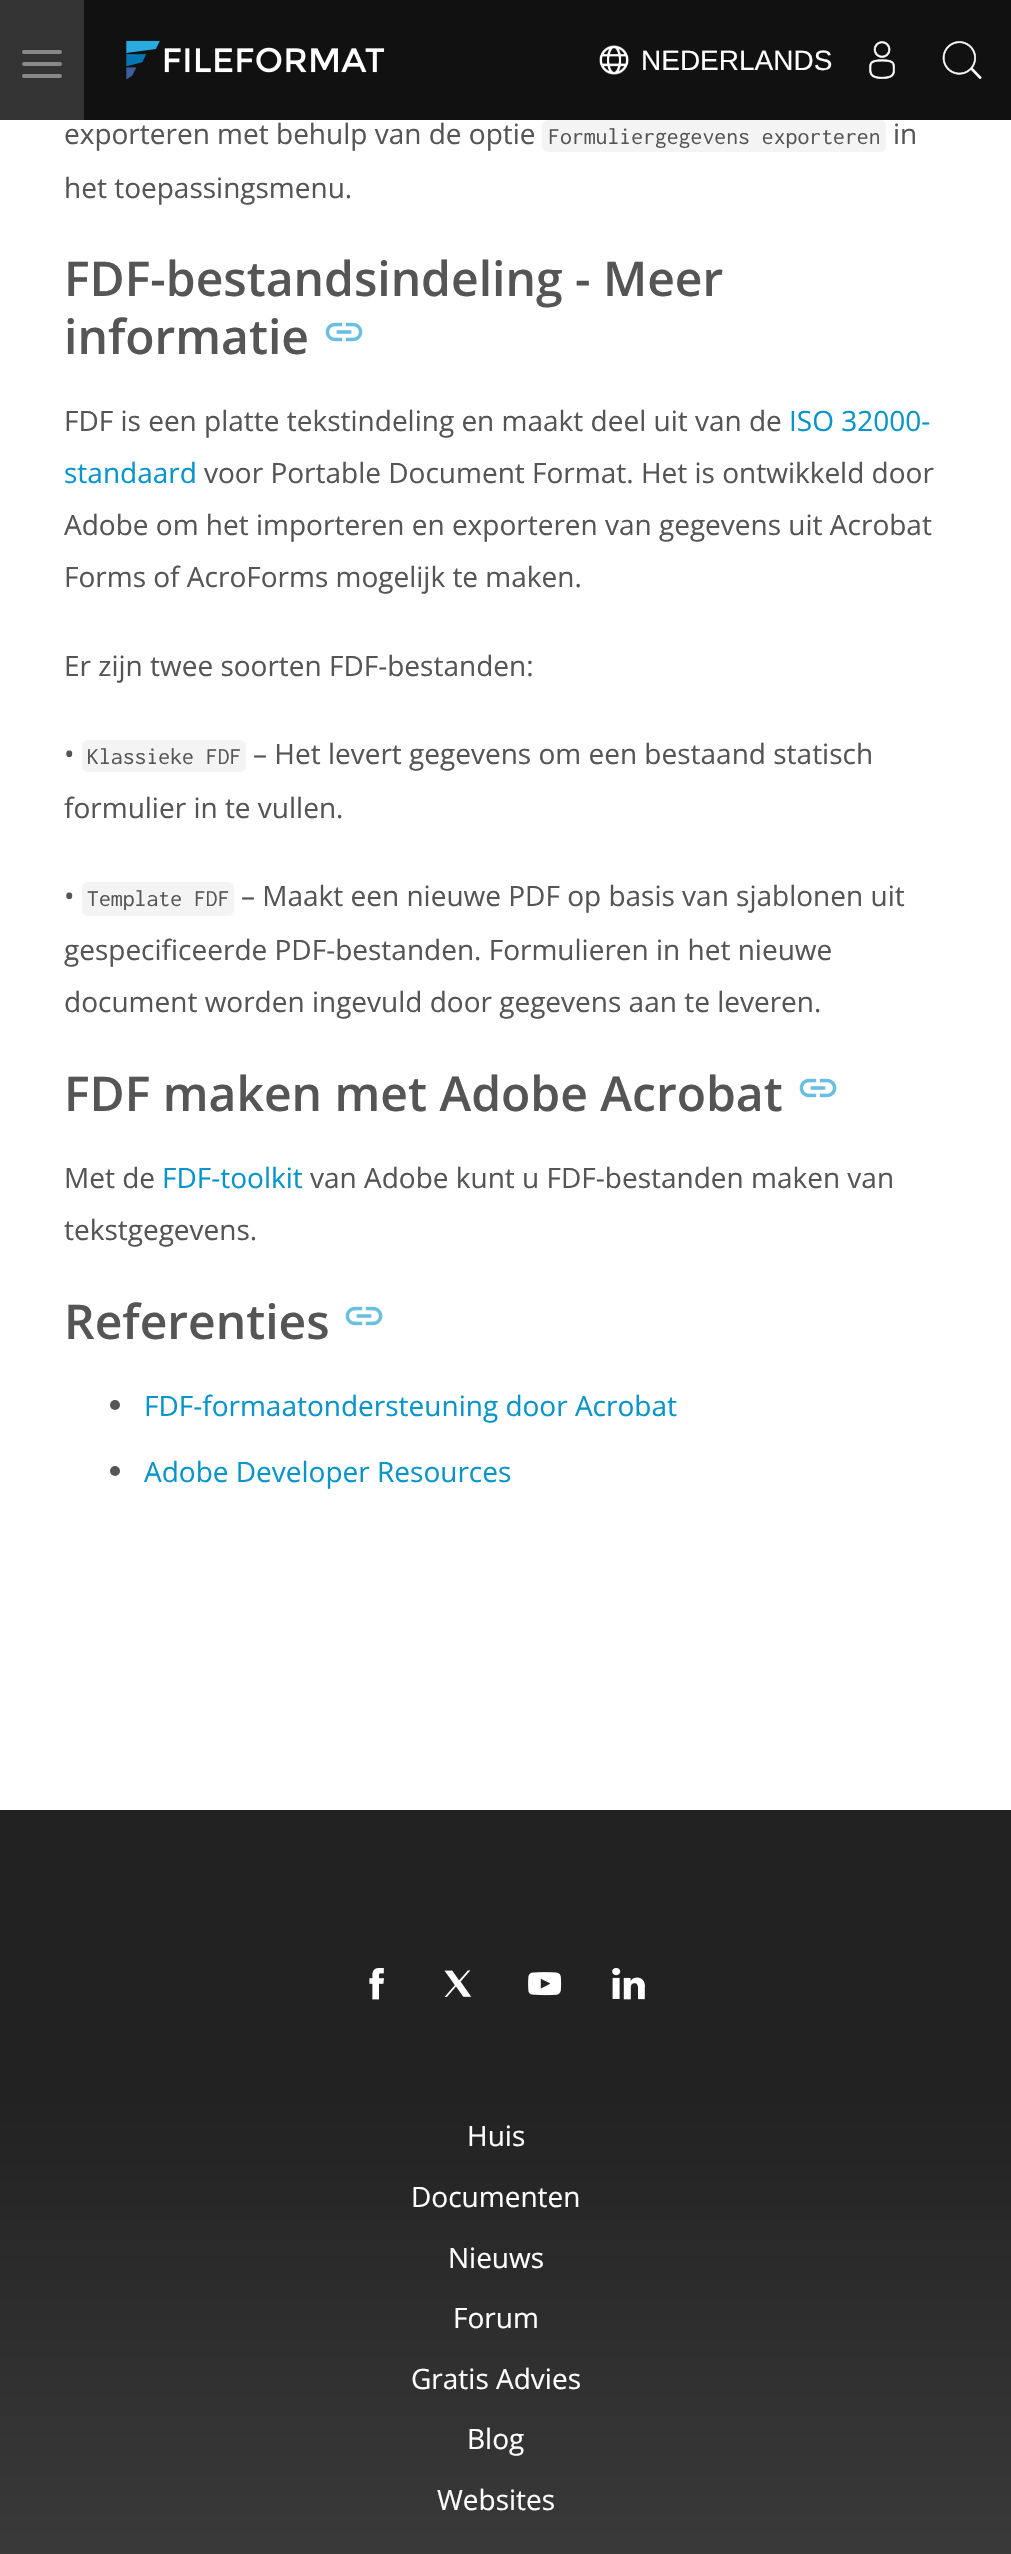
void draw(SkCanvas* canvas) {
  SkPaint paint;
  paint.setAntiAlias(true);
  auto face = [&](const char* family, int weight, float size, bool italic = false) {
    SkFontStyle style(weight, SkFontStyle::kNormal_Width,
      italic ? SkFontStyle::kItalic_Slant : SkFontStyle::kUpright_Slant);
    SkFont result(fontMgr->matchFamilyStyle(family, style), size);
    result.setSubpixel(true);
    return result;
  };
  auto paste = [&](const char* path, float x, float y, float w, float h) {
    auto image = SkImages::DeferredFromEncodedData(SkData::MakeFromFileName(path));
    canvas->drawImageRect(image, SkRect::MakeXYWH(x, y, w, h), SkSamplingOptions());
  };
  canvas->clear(0xffffffff);
  paint.setColor(0xff111111);
  canvas->drawRect(SkRect::MakeXYWH(84, 0, 927, 120), paint);
  paint.setColor(0xff333333);
  canvas->drawRect(SkRect::MakeXYWH(0, 0, 84, 120), paint);
  paint.setColor(0xff888888);
  canvas->drawRoundRect(SkRect::MakeXYWH(22, 50, 40, 4), 2, 2, paint);
  canvas->drawRoundRect(SkRect::MakeXYWH(22, 62, 40, 4), 2, 2, paint);
  canvas->drawRoundRect(SkRect::MakeXYWH(22, 74, 40, 4), 2, 2, paint);
  paste("img/1.png", 126, 40, 259, 40);
  paste("img/2.png", 599, 45, 30, 30);
  paste("img/3.png", 869, 41, 26, 38);
  paste("img/4.png", 942, 41, 40, 38);
  paint.setColor(0xfff4f4f4);
  canvas->drawRoundRect(SkRect::MakeXYWH(542, 120, 344, 32), 6, 6, paint);
  paste("img/5.png", 325, 322, 38, 20);
  canvas->drawRoundRect(SkRect::MakeXYWH(82, 740, 164, 32), 6, 6, paint);
  canvas->drawRoundRect(SkRect::MakeXYWH(82, 882, 152, 34), 6, 6, paint);
  paste("img/5.png", 799, 1078, 38, 20);
  paste("img/5.png", 345, 1306, 38, 20);
  paint.setColor(0xff555555);
  canvas->drawCircle(115, 1405, 5, paint);
  canvas->drawCircle(115, 1471, 5, paint);
  {
    const SkColor colors[] = {0xff222222, 0xff444444};
    const float stops[] = {0.3f, 1};
    const SkPoint ends[] = {{506, 1810}, {506, 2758}};
    paint.setShader(SkGradientShader::MakeLinear(ends, colors, stops, 2, SkTileMode::kClamp));
    paint.setAlpha(255);
  }
  canvas->drawRect(SkRect::MakeXYWH(0, 1810, 1011, 744), paint);
  paste("img/6.png", 369, 1968, 15, 32);
  paste("img/7.png", 444, 1970, 28, 27);
  paste("img/8.png", 528, 1972, 34, 24);
  paste("img/9.png", 612, 1968, 33, 32);
  auto f0 = face("Liberation Sans", 400, 28);
  paint.setShader(nullptr);
  paint.setColor(0xffffffff);
  canvas->drawString("NEDERLANDS", 641, 70, f0, paint);
  auto f1 = face("Open Sans", 400, 28);
  paint.setColor(0xff555555);
  canvas->drawString("exporteren met behulp van de optie", 64, 144, f1, paint);
  auto f2 = face("Inconsolata", 400, 23.75f);
  canvas->drawString("Formuliergegevens exporteren", 548, 144, f2, paint);
  canvas->drawString("in", 893, 144, f1, paint);
  canvas->drawString("het toepassingsmenu.", 64, 198, f1, paint);
  auto f3 = face("Open Sans", 600, 48);
  canvas->drawString("FDF-bestandsindeling - Meer", 64, 296, f3, paint);
  canvas->drawString("informatie", 64, 354, f3, paint);
  canvas->drawString("FDF is een platte tekstindeling en maakt deel uit van de", 64, 431, f1, paint);
  paint.setColor(0xff0594cb);
  canvas->drawString("ISO 32000-", 789, 431, f1, paint);
  canvas->drawString("standaard", 64, 483, f1, paint);
  paint.setColor(0xff555555);
  {
    const struct { const char* s; float x, y; } items[] = {
      {"voor Portable Document Format. Het is ontwikkeld door", 204, 483},
      {"Adobe om het importeren en exporteren van gegevens uit Acrobat", 64, 535},
      {"Forms of AcroForms mogelijk te maken.", 64, 587},
      {"Er zijn twee soorten FDF-bestanden:", 64, 676},
      {"•", 64, 764},
    };
    for (auto [s, x, y] : items) {
      canvas->drawString(s, x, y, f1, paint);
    }
  }
  canvas->drawString("Klassieke FDF", 87, 764, f2, paint);
  {
    const struct { const char* s; float x, y; } items[] = {
      {"– Het levert gegevens om een bestaand statisch", 253, 764},
      {"formulier in te vullen.", 64, 818},
      {"•", 64, 906},
    };
    for (auto [s, x, y] : items) {
      canvas->drawString(s, x, y, f1, paint);
    }
  }
  canvas->drawString("Template FDF", 87, 906, f2, paint);
  {
    const struct { const char* s; float x, y; } items[] = {
      {"– Maakt een nieuwe PDF op basis van sjablonen uit", 241, 906},
      {"gespecificeerde PDF-bestanden. Formulieren in het nieuwe", 64, 960},
      {"document worden ingevuld door gegevens aan te leveren.", 64, 1012},
    };
    for (auto [s, x, y] : items) {
      canvas->drawString(s, x, y, f1, paint);
    }
  }
  canvas->drawString("FDF maken met Adobe Acrobat", 64, 1111, f3, paint);
  canvas->drawString("Met de", 64, 1188, f1, paint);
  paint.setColor(0xff0594cb);
  canvas->drawString("FDF-toolkit", 162, 1188, f1, paint);
  paint.setColor(0xff555555);
  canvas->drawString("van Adobe kunt u FDF-bestanden maken van", 310, 1188, f1, paint);
  canvas->drawString("tekstgegevens.", 64, 1240, f1, paint);
  canvas->drawString("Referenties", 64, 1339, f3, paint);
  paint.setColor(0xff0594cb);
  canvas->drawString("FDF-formaatondersteuning door Acrobat", 144, 1416, f1, paint);
  canvas->drawString("Adobe Developer Resources", 144, 1482, f1, paint);
  paint.setColor(0xffffffff);
  {
    const struct { const char* s; float x, y; } items[] = {
      {"Huis", 467, 2146},
      {"Documenten", 411, 2207},
      {"Nieuws", 448, 2268},
      {"Forum", 453, 2328},
      {"Gratis Advies", 411, 2389},
      {"Blog", 467, 2449},
      {"Websites", 437, 2510},
    };
    for (auto [s, x, y] : items) {
      canvas->drawString(s, x, y, f1, paint);
    }
  }
}
